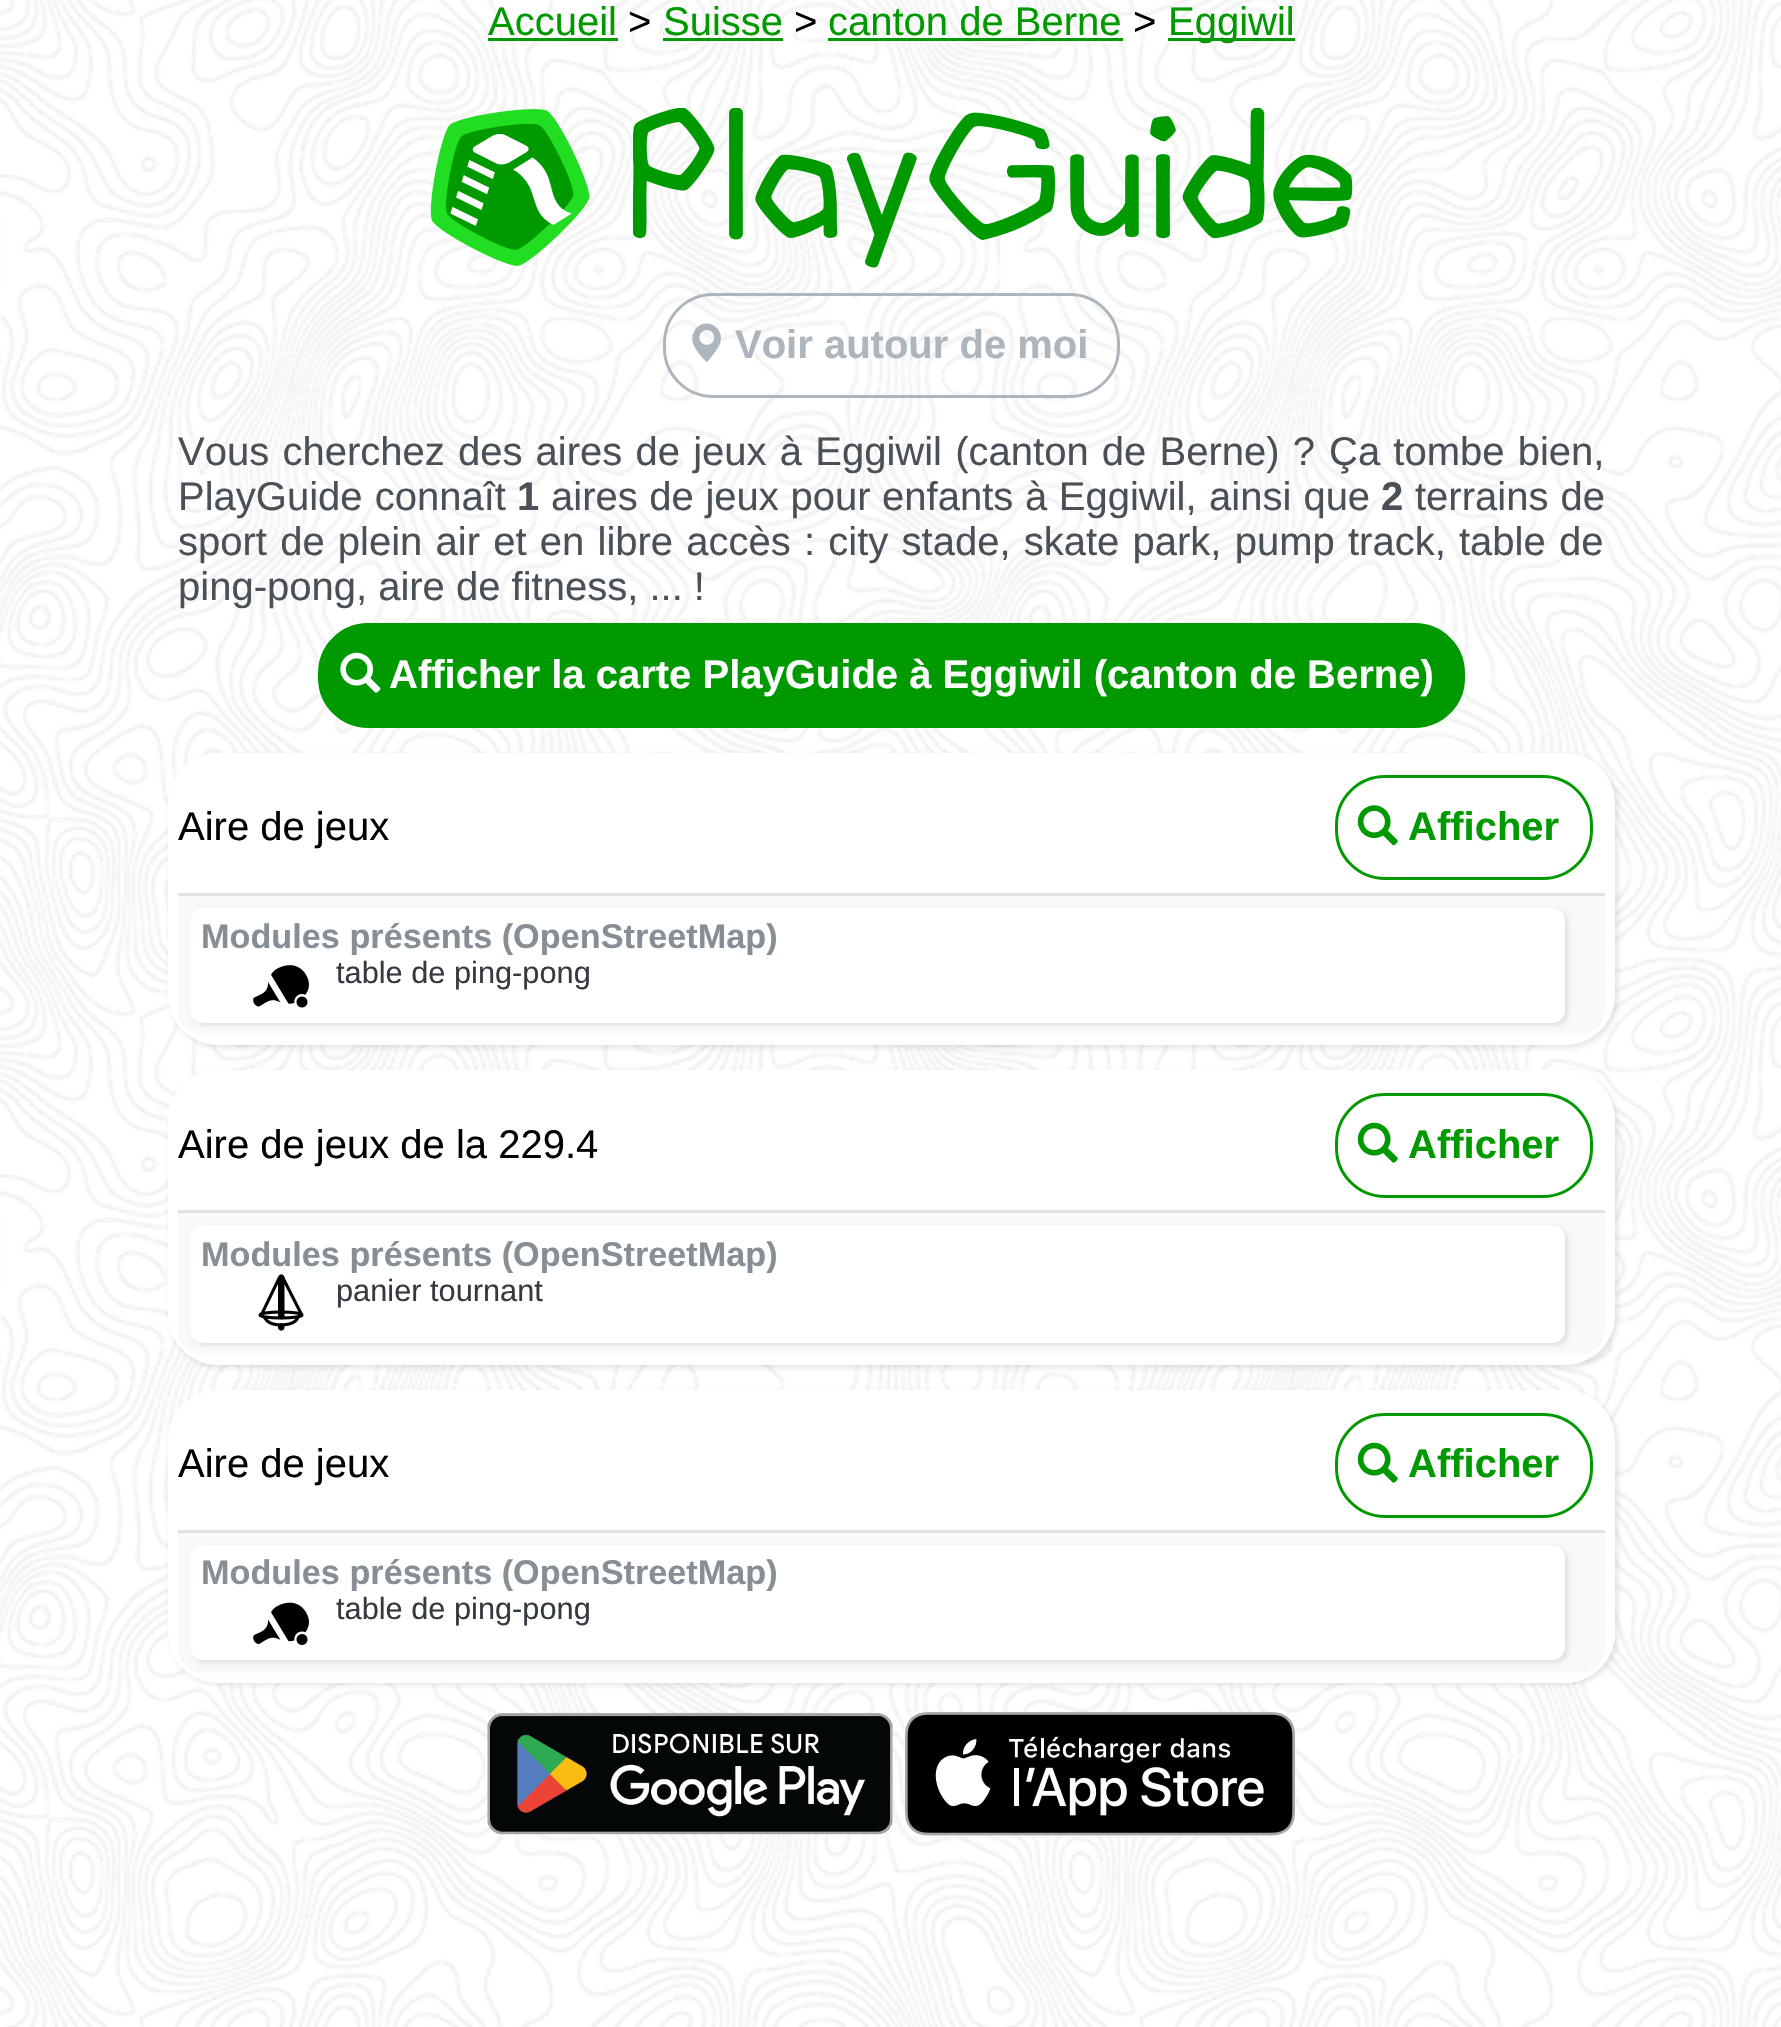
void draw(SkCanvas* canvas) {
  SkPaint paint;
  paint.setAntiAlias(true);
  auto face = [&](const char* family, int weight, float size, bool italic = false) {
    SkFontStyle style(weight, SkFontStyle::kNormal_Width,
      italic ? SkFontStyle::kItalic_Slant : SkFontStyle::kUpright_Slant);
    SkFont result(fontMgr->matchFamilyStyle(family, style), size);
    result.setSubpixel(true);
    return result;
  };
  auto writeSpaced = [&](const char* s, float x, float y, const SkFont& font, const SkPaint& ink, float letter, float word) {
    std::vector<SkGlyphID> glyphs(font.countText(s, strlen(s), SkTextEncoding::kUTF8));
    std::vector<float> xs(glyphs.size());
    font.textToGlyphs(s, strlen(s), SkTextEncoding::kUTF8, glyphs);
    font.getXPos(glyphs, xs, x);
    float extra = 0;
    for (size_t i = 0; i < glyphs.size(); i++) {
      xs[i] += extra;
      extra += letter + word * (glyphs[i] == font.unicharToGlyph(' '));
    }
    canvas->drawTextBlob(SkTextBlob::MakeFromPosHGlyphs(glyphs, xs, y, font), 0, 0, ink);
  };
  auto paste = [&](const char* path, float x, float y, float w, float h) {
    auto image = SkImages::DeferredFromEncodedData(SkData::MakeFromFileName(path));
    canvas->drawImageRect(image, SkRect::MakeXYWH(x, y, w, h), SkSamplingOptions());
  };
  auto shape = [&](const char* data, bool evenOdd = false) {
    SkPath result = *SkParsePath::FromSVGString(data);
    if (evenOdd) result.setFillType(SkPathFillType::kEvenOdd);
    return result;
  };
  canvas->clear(0xffffffff);
  paste("img/1.png", 0, 0, 1781, 2027);
  {
    const struct { float x, y, w, h; SkColor color; } items[] = {
      {488, 38, 130, 3, 0xff009900},
      {663, 38, 120, 3, 0xff009900},
      {828, 38, 295, 3, 0xff009900},
      {1168, 38, 127, 3, 0xff009900},
    };
    for (auto [x, y, w, h, color] : items) {
      paint.setColor(color);
      canvas->drawRect(SkRect::MakeXYWH(x, y, w, h), paint);
    }
  }
  paste("img/2.png", 430, 109, 160, 157);
  paste("img/3.png", 633, 108, 720, 160);
  paint.setStroke(true);
  paint.setStrokeWidth(3);
  paint.setColor(0xffadb5bd);
  canvas->drawRoundRect(SkRect::MakeXYWH(664.5f, 294.5f, 454, 102), 48.5f, 48.5f, paint);
  paste("img/4.png", 692, 323, 29, 40);
  paint.setStroke(false);
  paint.setColor(0xff009900);
  canvas->drawRoundRect(SkRect::MakeXYWH(319.5f, 624.5f, 1144, 102), 48.5f, 48.5f, paint);
  paint.setStroke(true);
  canvas->drawRoundRect(SkRect::MakeXYWH(319.5f, 624.5f, 1144, 102), 48.5f, 48.5f, paint);
  paste("img/5.png", 340, 652, 41, 41);
  paint.setStroke(false);
  paint.setColor(0x1a000000);
  paint.setMaskFilter(SkMaskFilter::MakeBlur(kNormal_SkBlurStyle, 2.5f));
  canvas->drawRoundRect(SkRect::MakeXYWH(170, 755, 1448, 293), 50, 50, paint);
  paint.setMaskFilter(nullptr);
  paint.setColor(0xffffffff);
  canvas->drawRoundRect(SkRect::MakeXYWH(168, 753, 1447, 292), 50, 50, paint);
  paint.setStroke(true);
  paint.setColor(0xff009900);
  canvas->drawRoundRect(SkRect::MakeXYWH(1336.5f, 776.5f, 255, 102), 48.5f, 48.5f, paint);
  paste("img/6.png", 1357, 805, 41, 41);
  paint.setStroke(false);
  paint.setColor(0xfff8f9fa);
  canvas->drawPath(shape("M178 893H1605V1010C1605 1024 1594 1035 1580 1035H203C189 1035 178 1024 178 1010Z"), paint);
  paint.setColor(0xffdee2e6);
  canvas->drawRect(SkRect::MakeXYWH(178, 893, 1427, 3), paint);
  paint.setColor(0x1a000000);
  paint.setMaskFilter(SkMaskFilter::MakeBlur(kNormal_SkBlurStyle, 2.5f));
  canvas->drawRoundRect(SkRect::MakeXYWH(193, 910, 1375, 115), 13, 13, paint);
  paint.setMaskFilter(nullptr);
  paint.setColor(0xffffffff);
  canvas->drawRoundRect(SkRect::MakeXYWH(190, 908, 1375, 115), 13, 13, paint);
  paste("img/7.png", 253, 965, 56, 43);
  paint.setColor(0x1a000000);
  paint.setMaskFilter(SkMaskFilter::MakeBlur(kNormal_SkBlurStyle, 2.5f));
  canvas->drawRoundRect(SkRect::MakeXYWH(170, 1073, 1448, 295), 50, 50, paint);
  paint.setMaskFilter(nullptr);
  paint.setColor(0xffffffff);
  canvas->drawRoundRect(SkRect::MakeXYWH(168, 1070, 1447, 295), 50, 50, paint);
  paint.setStroke(true);
  paint.setColor(0xff009900);
  canvas->drawRoundRect(SkRect::MakeXYWH(1336.5f, 1094.5f, 255, 102), 48.5f, 48.5f, paint);
  paste("img/8.png", 1357, 1122, 41, 41);
  paint.setStroke(false);
  paint.setColor(0xfff8f9fa);
  canvas->drawPath(shape("M178 1210H1605V1330C1605 1344 1594 1355 1580 1355H203C189 1355 178 1344 178 1330Z"), paint);
  paint.setColor(0xffdee2e6);
  canvas->drawRect(SkRect::MakeXYWH(178, 1210, 1427, 3), paint);
  paint.setColor(0x1a000000);
  paint.setMaskFilter(SkMaskFilter::MakeBlur(kNormal_SkBlurStyle, 2.5f));
  canvas->drawRoundRect(SkRect::MakeXYWH(193, 1228, 1375, 117), 13, 13, paint);
  paint.setMaskFilter(nullptr);
  paint.setColor(0xffffffff);
  canvas->drawRoundRect(SkRect::MakeXYWH(190, 1225, 1375, 118), 13, 13, paint);
  paste("img/9.png", 258, 1274, 46, 57);
  paint.setColor(0x1a000000);
  paint.setMaskFilter(SkMaskFilter::MakeBlur(kNormal_SkBlurStyle, 2.5f));
  canvas->drawRoundRect(SkRect::MakeXYWH(170, 1393, 1448, 292), 50, 50, paint);
  paint.setMaskFilter(nullptr);
  paint.setColor(0xffffffff);
  canvas->drawRoundRect(SkRect::MakeXYWH(168, 1390, 1447, 293), 50, 50, paint);
  paint.setStroke(true);
  paint.setColor(0xff009900);
  canvas->drawRoundRect(SkRect::MakeXYWH(1336.5f, 1414.5f, 255, 102), 48.5f, 48.5f, paint);
  paste("img/8.png", 1357, 1442, 41, 41);
  paint.setStroke(false);
  paint.setColor(0xfff8f9fa);
  canvas->drawPath(shape("M178 1530H1605V1648C1605 1662 1594 1673 1580 1673H203C189 1673 178 1662 178 1648Z"), paint);
  paint.setColor(0xffdee2e6);
  canvas->drawRect(SkRect::MakeXYWH(178, 1530, 1427, 3), paint);
  paint.setColor(0x1a000000);
  paint.setMaskFilter(SkMaskFilter::MakeBlur(kNormal_SkBlurStyle, 2.5f));
  canvas->drawRoundRect(SkRect::MakeXYWH(193, 1548, 1375, 115), 13, 13, paint);
  paint.setMaskFilter(nullptr);
  paint.setColor(0xffffffff);
  canvas->drawRoundRect(SkRect::MakeXYWH(190, 1545, 1375, 115), 13, 13, paint);
  paste("img/10.png", 253, 1602, 56, 43);
  paste("img/11.png", 487, 1713, 406, 122);
  paste("img/12.png", 905, 1712, 390, 124);
  auto f0 = face("Liberation Sans", 400, 40);
  paint.setColor(0xff009900);
  canvas->drawString("Accueil", 488, 35, f0, paint);
  paint.setColor(0xff000000);
  canvas->drawString(">", 628, 35, f0, paint);
  paint.setColor(0xff009900);
  canvas->drawString("Suisse", 663, 35, f0, paint);
  paint.setColor(0xff000000);
  canvas->drawString(">", 794, 35, f0, paint);
  paint.setColor(0xff009900);
  canvas->drawString("canton de Berne", 828, 35, f0, paint);
  paint.setColor(0xff000000);
  canvas->drawString(">", 1133, 35, f0, paint);
  paint.setColor(0xff009900);
  canvas->drawString("Eggiwil", 1168, 35, f0, paint);
  auto f1 = face("Liberation Sans", 700, 40);
  paint.setColor(0xffadb5bd);
  canvas->drawString("Voir autour de moi", 735, 358, f1, paint);
  paint.setColor(0xff495057);
  writeSpaced("Vous cherchez des aires de jeux à Eggiwil (canton de Berne) ?", 178, 465, f0, paint, 0, 2.1f);
  writeSpaced("Ça tombe bien,", 1329, 465, f0, paint, 0, 2.1f);
  writeSpaced("PlayGuide connaît", 178, 510, f0, paint, 0, 1);
  canvas->drawString("1", 517, 510, f1, paint);
  writeSpaced("aires de jeux pour enfants à Eggiwil,", 551, 510, f0, paint, 0, 0.5f);
  writeSpaced("ainsi que", 1209, 510, f0, paint, 0, 1);
  canvas->drawString("2", 1381, 510, f1, paint);
  writeSpaced("terrains de", 1415, 510, f0, paint, 0, 1);
  writeSpaced("sport de plein air et en libre accès : city stade, skate park, pump track, table de", 178, 555, f0, paint, 0, 2.1f);
  canvas->drawString("ping-pong, aire de fitness, ... !", 178, 600, f0, paint);
  paint.setColor(0xffffffff);
  canvas->drawString("Afficher la carte PlayGuide à Eggiwil (canton de Berne)", 389, 688, f1, paint);
  paint.setColor(0xff000000);
  canvas->drawString("Aire de jeux", 178, 840, f0, paint);
  paint.setColor(0xff009900);
  canvas->drawString("Afficher", 1408, 840, f1, paint);
  auto f2 = face("Liberation Sans", 700, 34.25f);
  paint.setColor(0xff868e96);
  canvas->drawString("Modules présents (OpenStreetMap)", 201, 948, f2, paint);
  auto f3 = face("Liberation Sans", 400, 30.75f);
  paint.setColor(0xff343a40);
  canvas->drawString("table de ping-pong", 336, 983, f3, paint);
  paint.setColor(0xff000000);
  canvas->drawString("Aire de jeux de la 229.4", 178, 1158, f0, paint);
  paint.setColor(0xff009900);
  canvas->drawString("Afficher", 1408, 1158, f1, paint);
  paint.setColor(0xff868e96);
  canvas->drawString("Modules présents (OpenStreetMap)", 201, 1266, f2, paint);
  paint.setColor(0xff343a40);
  canvas->drawString("panier tournant", 336, 1301, f3, paint);
  paint.setColor(0xff000000);
  canvas->drawString("Aire de jeux", 178, 1477, f0, paint);
  paint.setColor(0xff009900);
  canvas->drawString("Afficher", 1408, 1477, f1, paint);
  paint.setColor(0xff868e96);
  canvas->drawString("Modules présents (OpenStreetMap)", 201, 1584, f2, paint);
  paint.setColor(0xff343a40);
  canvas->drawString("table de ping-pong", 336, 1619, f3, paint);
}
